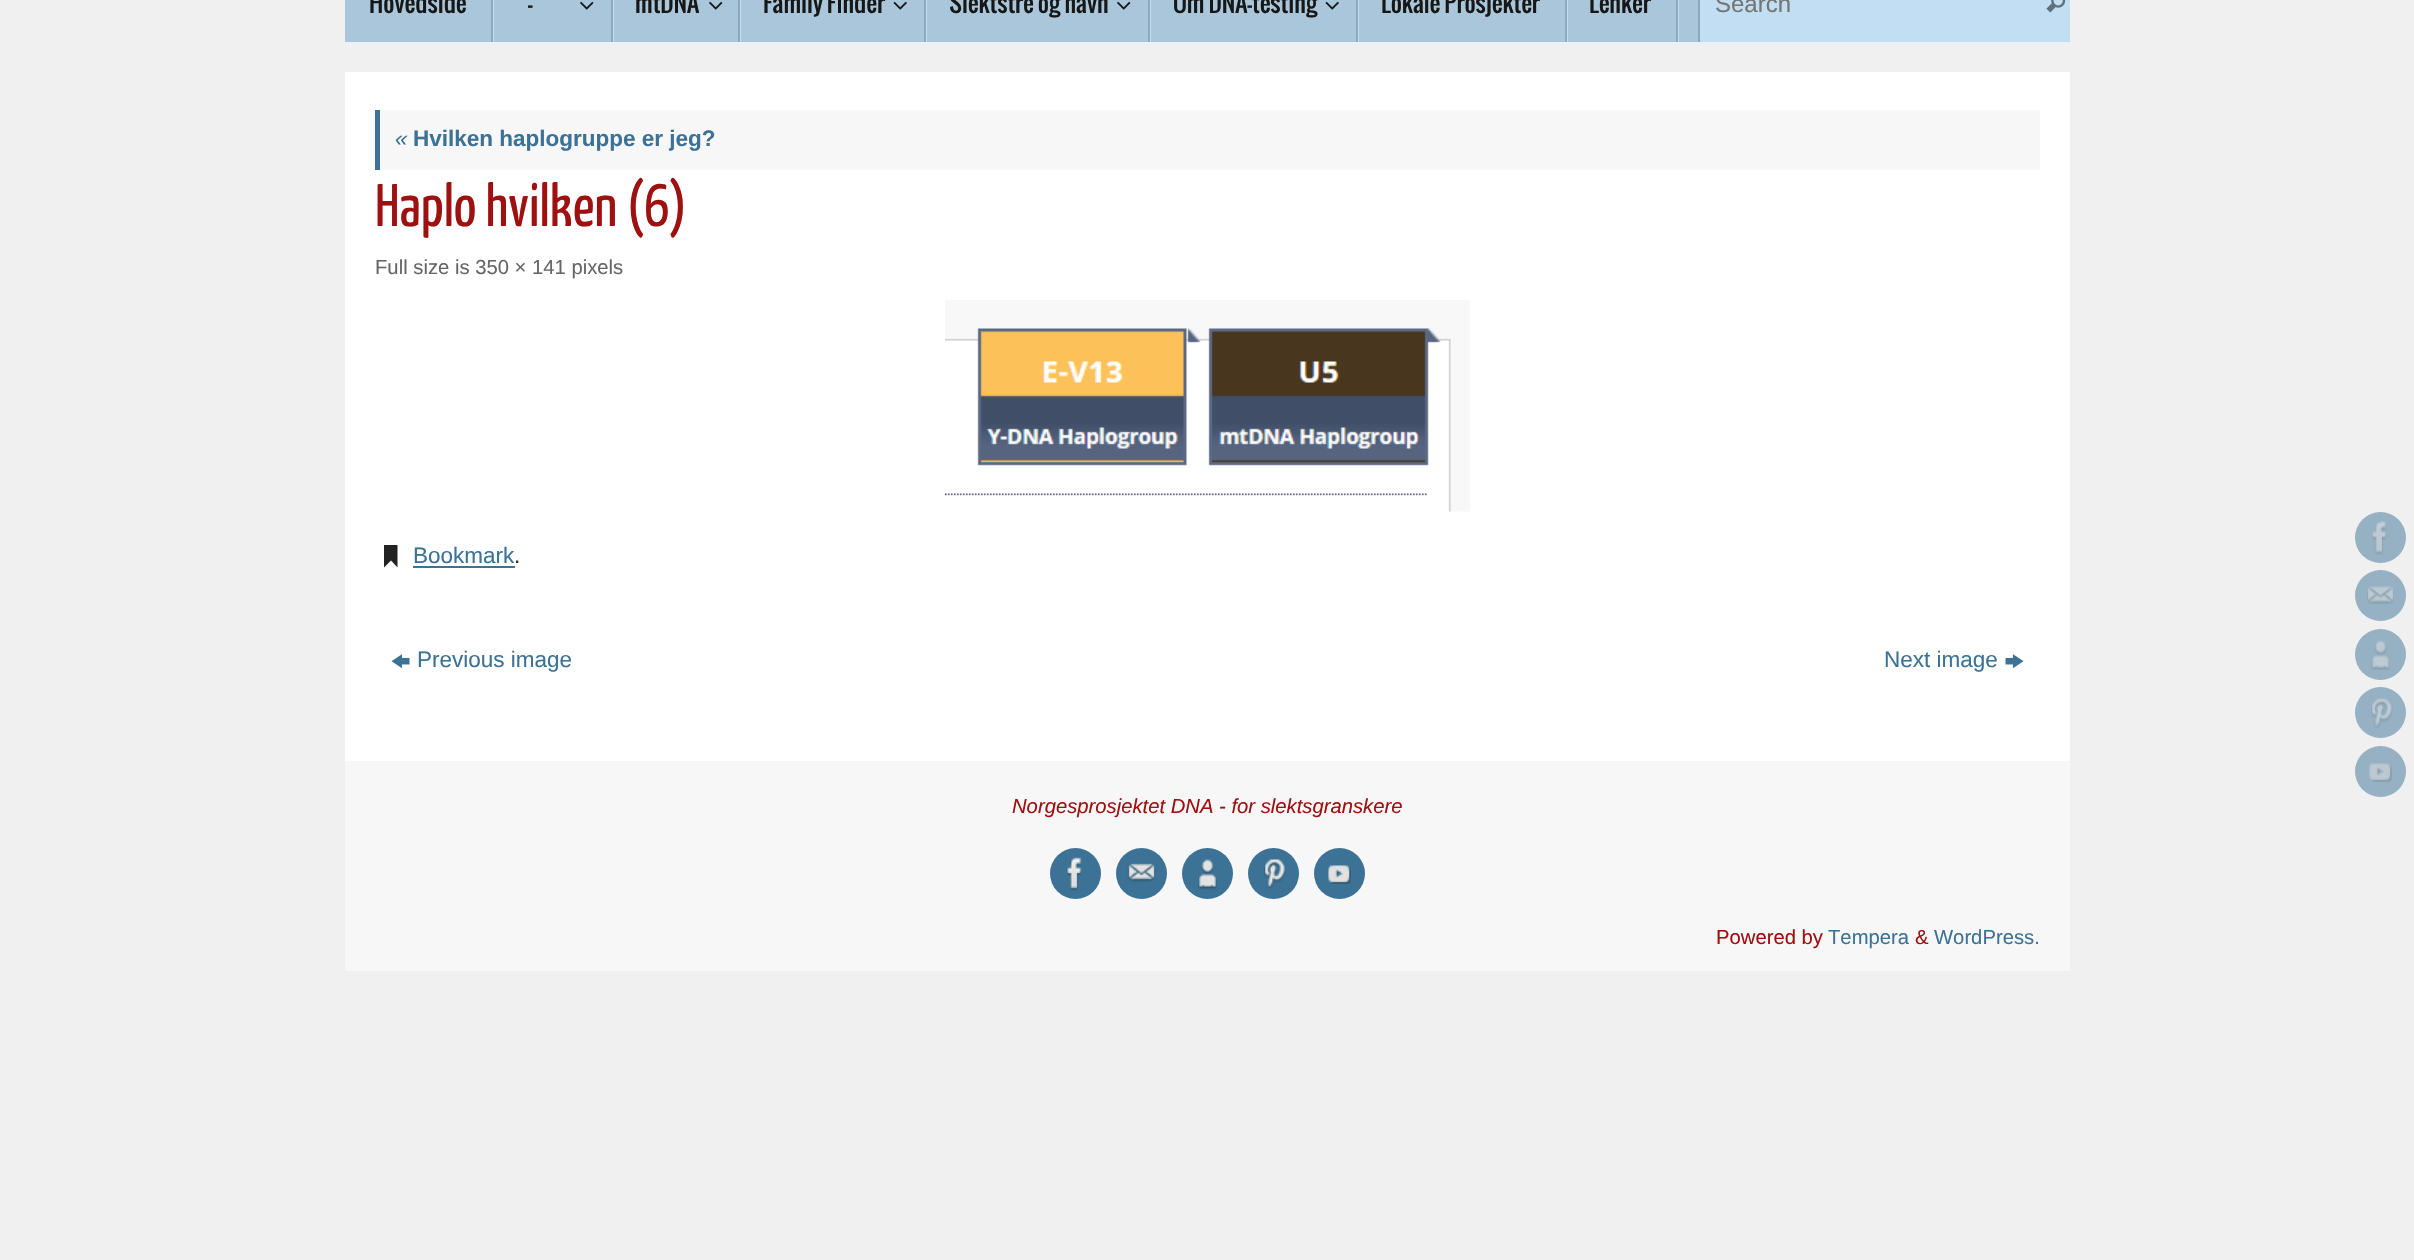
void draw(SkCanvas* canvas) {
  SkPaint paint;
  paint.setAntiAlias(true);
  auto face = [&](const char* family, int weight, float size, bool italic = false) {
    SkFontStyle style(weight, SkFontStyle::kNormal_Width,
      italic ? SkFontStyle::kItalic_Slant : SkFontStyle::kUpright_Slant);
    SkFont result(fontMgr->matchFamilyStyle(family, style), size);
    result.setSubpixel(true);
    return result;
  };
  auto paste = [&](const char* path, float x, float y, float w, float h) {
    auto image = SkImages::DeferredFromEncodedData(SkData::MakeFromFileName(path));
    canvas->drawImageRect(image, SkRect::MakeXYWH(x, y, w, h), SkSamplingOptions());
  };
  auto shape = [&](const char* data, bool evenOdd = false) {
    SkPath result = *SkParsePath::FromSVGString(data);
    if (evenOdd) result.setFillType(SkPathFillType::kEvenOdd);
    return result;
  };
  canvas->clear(0xfff0f0f0);
  {
    const struct { float x, y, w, h; SkColor color; } items[] = {
      {345, 0, 1353, 42, 0xffa9c6da},
      {493, 0, 1, 42, 0xffc1def2},
      {491, 0, 2, 42, 0xff8ba8bc},
      {613, 0, 1, 42, 0xffc1def2},
      {611, 0, 2, 42, 0xff8ba8bc},
    };
    for (auto [x, y, w, h, color] : items) {
      paint.setColor(color);
      canvas->drawRect(SkRect::MakeXYWH(x, y, w, h), paint);
    }
  }
  paste("img/1.png", 580, 1, 14, 9);
  paint.setColor(0xffc1def2);
  canvas->drawRect(SkRect::MakeXYWH(740, 0, 1, 42), paint);
  paint.setColor(0xff8ba8bc);
  canvas->drawRect(SkRect::MakeXYWH(738, 0, 2, 42), paint);
  paste("img/1.png", 709, 1, 14, 9);
  paint.setColor(0xffc1def2);
  canvas->drawRect(SkRect::MakeXYWH(926, 0, 1, 42), paint);
  paint.setColor(0xff8ba8bc);
  canvas->drawRect(SkRect::MakeXYWH(924, 0, 2, 42), paint);
  paste("img/2.png", 893, 1, 14, 9);
  paint.setColor(0xffc1def2);
  canvas->drawRect(SkRect::MakeXYWH(1150, 0, 1, 42), paint);
  paint.setColor(0xff8ba8bc);
  canvas->drawRect(SkRect::MakeXYWH(1148, 0, 2, 42), paint);
  paste("img/1.png", 1117, 1, 14, 9);
  paint.setColor(0xffc1def2);
  canvas->drawRect(SkRect::MakeXYWH(1358, 0, 1, 42), paint);
  paint.setColor(0xff8ba8bc);
  canvas->drawRect(SkRect::MakeXYWH(1356, 0, 2, 42), paint);
  paste("img/2.png", 1325, 1, 14, 9);
  {
    const struct { float x, y, w, h; SkColor color; } items[] = {
      {1567, 0, 1, 42, 0xffc1def2},
      {1565, 0, 2, 42, 0xff8ba8bc},
      {1678, 0, 1, 42, 0xffc1def2},
      {1676, 0, 2, 42, 0xff8ba8bc},
      {1700, 0, 370, 42, 0xffc1def2},
      {1698, 0, 2, 42, 0xff8ba8bc},
    };
    for (auto [x, y, w, h, color] : items) {
      paint.setColor(color);
      canvas->drawRect(SkRect::MakeXYWH(x, y, w, h), paint);
    }
  }
  paste("img/3.png", 2046, 0, 20, 13);
  {
    const struct { float x, y, w, h; SkColor color; } items[] = {
      {345, 72, 1725, 689, 0xffffffff},
      {380, 110, 1660, 60, 0xfff7f7f7},
      {375, 110, 5, 60, 0xff3c7296},
    };
    for (auto [x, y, w, h, color] : items) {
      paint.setColor(color);
      canvas->drawRect(SkRect::MakeXYWH(x, y, w, h), paint);
    }
  }
  paste("img/4.png", 945, 300, 525, 212);
  paint.setColor(0xff222222);
  canvas->drawPath(shape("M384 565.5V545H397.5V567.5L391 560.5L384 567.5Z"), paint);
  paint.setColor(0xff3c7296);
  canvas->drawRect(SkRect::MakeXYWH(413, 566, 102, 2), paint);
  paste("img/5.png", 391, 654, 19, 15);
  paste("img/6.png", 2005, 654, 19, 15);
  paint.setColor(0xfff7f7f7);
  canvas->drawRect(SkRect::MakeXYWH(345, 761, 1725, 210), paint);
  paint.setColor(0xff3c7296);
  canvas->drawCircle(1075.5f, 873.5f, 25.5f, paint);
  paste("img/7.png", 1066, 857, 16, 34);
  canvas->drawCircle(1141.5f, 873.5f, 25.5f, paint);
  paste("img/8.png", 1127, 863, 29, 19);
  canvas->drawCircle(1207.5f, 873.5f, 25.5f, paint);
  paste("img/9.png", 1198, 859, 19, 31);
  canvas->drawCircle(1273.5f, 873.5f, 25.5f, paint);
  paste("img/10.png", 1264, 859, 22, 30);
  canvas->drawCircle(1339.5f, 873.5f, 25.5f, paint);
  paste("img/11.png", 1328, 865, 23, 19);
  paint.setColor(0xff96b1c3);
  canvas->drawCircle(2380.5f, 537.5f, 25.5f, paint);
  paste("img/12.png", 2372, 521, 15, 34);
  canvas->drawCircle(2380.5f, 595.5f, 25.5f, paint);
  paste("img/13.png", 2367, 586, 27, 18);
  canvas->drawCircle(2380.5f, 654.5f, 25.5f, paint);
  paste("img/14.png", 2371, 640, 19, 30);
  canvas->drawCircle(2380.5f, 712.5f, 25.5f, paint);
  paste("img/15.png", 2371, 698, 22, 30);
  canvas->drawCircle(2380.5f, 771.5f, 25.5f, paint);
  paste("img/16.png", 2369, 763, 23, 19);
  auto f0 = face("Oswald", 400, 24);
  paint.setColor(0xff171717);
  {
    const struct { const char* s; float x, y; } items[] = {
      {"Hovedside", 369, 13},
      {"-", 528, 13},
      {"mtDNA", 635, 13},
      {"Family Finder", 763, 13},
      {"Slektstre og navn", 949, 13},
      {"Om DNA-testing", 1173, 13},
      {"Lokale Prosjekter", 1381, 13},
      {"Lenker", 1589, 13},
    };
    for (auto [s, x, y] : items) {
      canvas->drawString(s, x, y, f0, paint);
    }
  }
  auto f1 = face("Liberation Sans", 400, 24);
  paint.setColor(0xff757575);
  canvas->drawString("Search", 1715, 12, f1, paint);
  auto f2 = face("Liberation Sans", 400, 22.5f, true);
  paint.setColor(0xff3c7296);
  canvas->drawString("«", 395, 146, f2, paint);
  auto f3 = face("Liberation Sans", 700, 22.5f);
  canvas->drawString("Hvilken haplogruppe er jeg?", 413, 146, f3, paint);
  auto f4 = face("Yanone Kaffeesatz", 400, 60);
  paint.setColor(0xff9f1010);
  canvas->drawString("Haplo hvilken (6)", 375, 226, f4, paint);
  auto f5 = face("Liberation Sans", 400, 20.25f);
  paint.setColor(0xff666666);
  canvas->drawString("Full size is 350 × 141 pixels", 375, 274, f5, paint);
  auto f6 = face("Liberation Sans", 400, 22.5f);
  paint.setColor(0xff3c7296);
  canvas->drawString("Bookmark", 413, 563, f6, paint);
  paint.setColor(0xff222222);
  canvas->drawString(".", 514, 563, f6, paint);
  paint.setColor(0xff3c7296);
  canvas->drawString("Previous image", 417, 667, f6, paint);
  canvas->drawString("Next image", 1884, 667, f6, paint);
  auto f7 = face("Liberation Sans", 400, 20.25f, true);
  paint.setColor(0xff9f1010);
  canvas->drawString("Norgesprosjektet DNA - for slektsgranskere", 1012, 813, f7, paint);
  canvas->drawString("Powered by", 1716, 944, f5, paint);
  paint.setColor(0xff3c7296);
  canvas->drawString("Tempera", 1828, 944, f5, paint);
  paint.setColor(0xff9f1010);
  canvas->drawString("&", 1915, 944, f5, paint);
  paint.setColor(0xff3c7296);
  canvas->drawString("WordPress.", 1934, 944, f5, paint);
}
